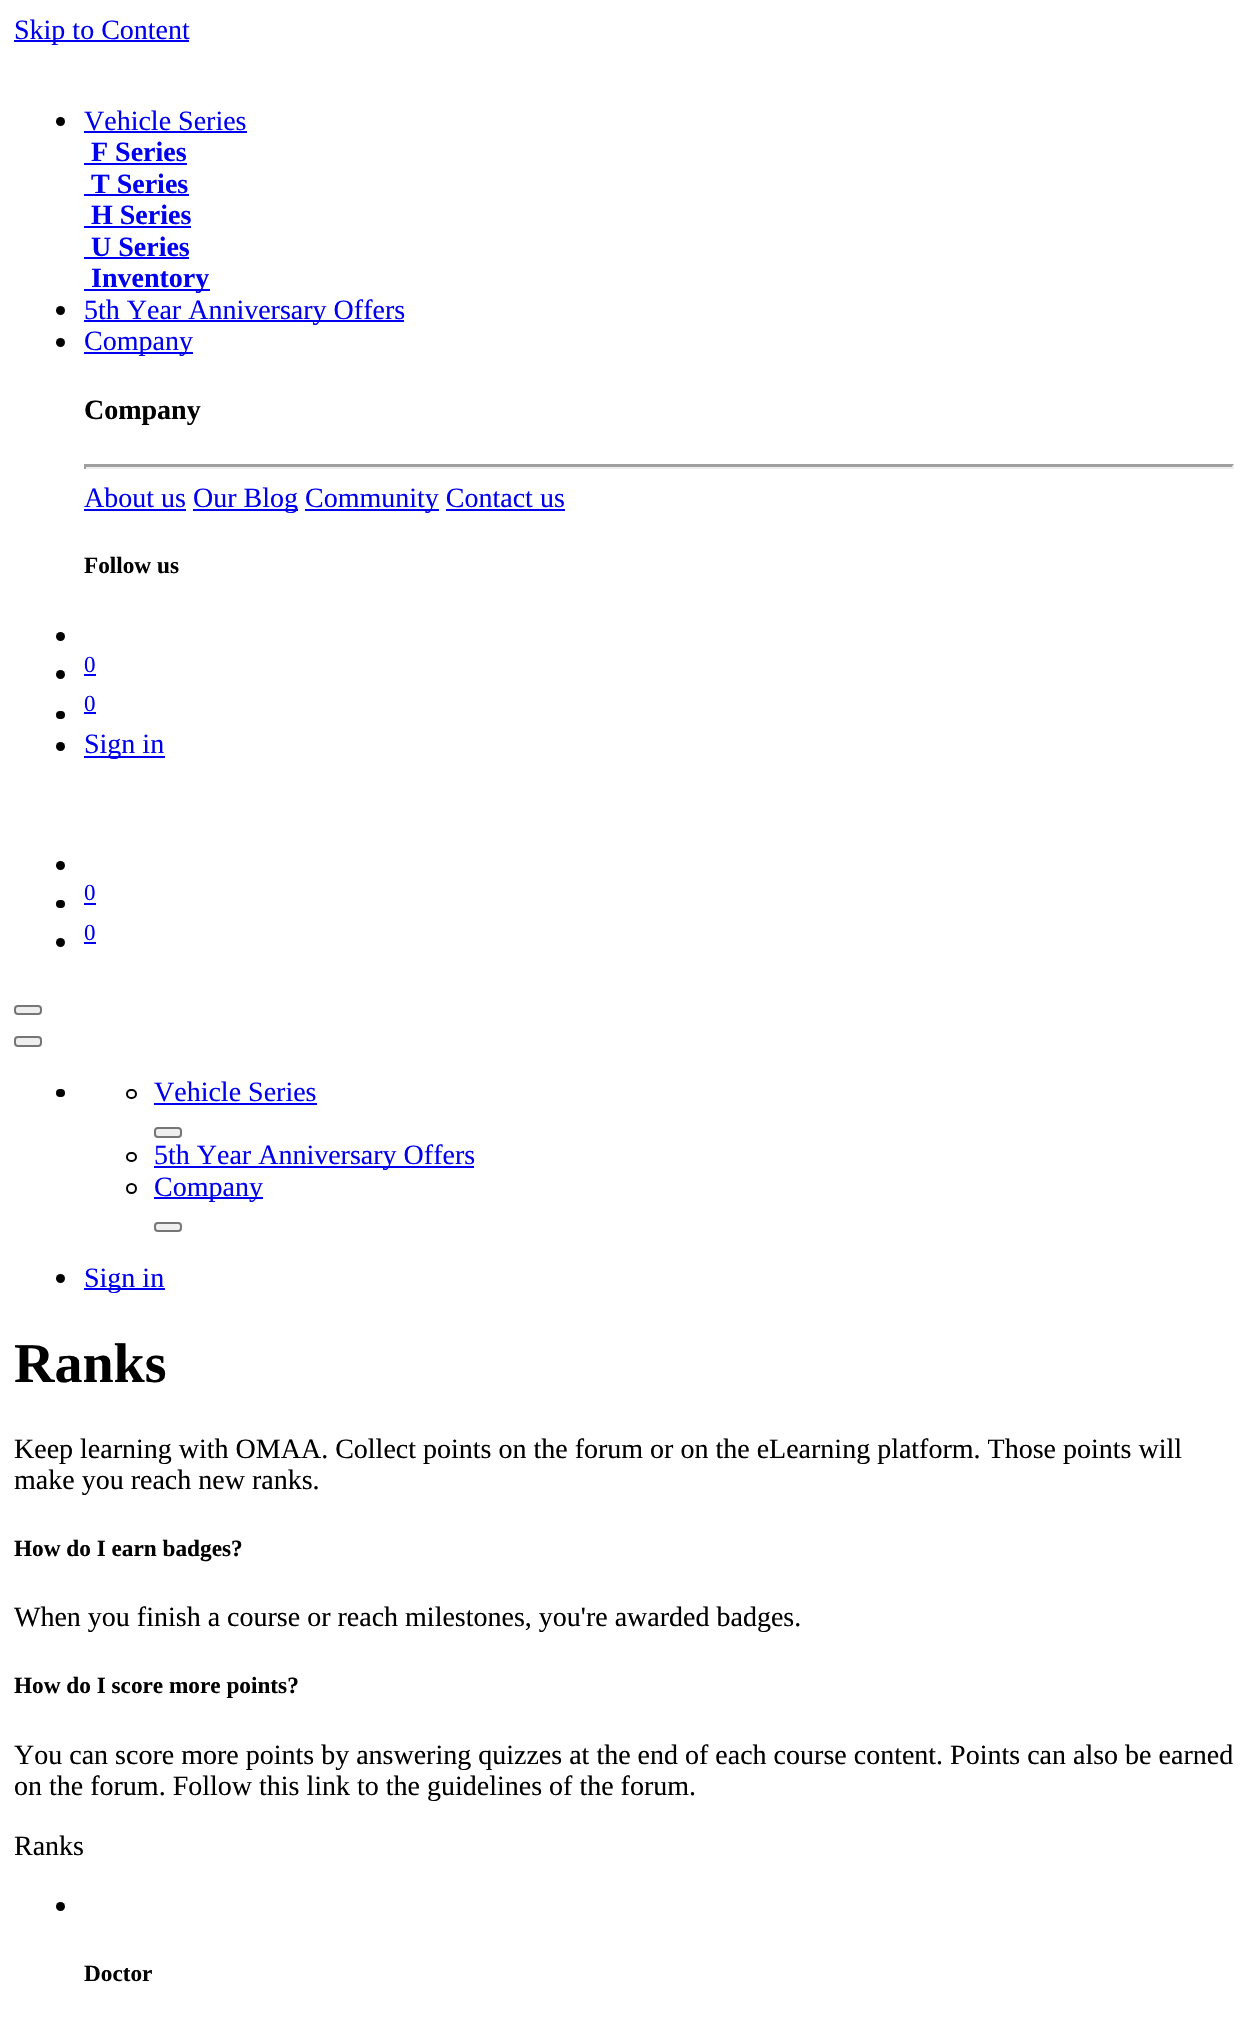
void draw(SkCanvas* canvas) {
  SkPaint paint;
  paint.setAntiAlias(true);
  auto face = [&](const char* family, int weight, float size, bool italic = false) {
    SkFontStyle style(weight, SkFontStyle::kNormal_Width,
      italic ? SkFontStyle::kItalic_Slant : SkFontStyle::kUpright_Slant);
    SkFont result(fontMgr->matchFamilyStyle(family, style), size);
    result.setSubpixel(true);
    return result;
  };
  auto shape = [&](const char* data, bool evenOdd = false) {
    SkPath result = *SkParsePath::FromSVGString(data);
    if (evenOdd) result.setFillType(SkPathFillType::kEvenOdd);
    return result;
  };
  canvas->clear(0xffffffff);
  paint.setColor(0xff0000ee);
  canvas->drawRect(SkRect::MakeXYWH(14, 40, 175, 2), paint);
  paint.setColor(0xff000000);
  canvas->drawCircle(60.5f, 121.5f, 4.5f, paint);
  {
    const struct { float x, y, w, h; SkColor color; } items[] = {
      {84, 131, 163, 2, 0xff0000ee},
      {84, 163, 103, 2, 0xff0000ee},
      {84, 194, 105, 2, 0xff0000ee},
      {84, 226, 107, 2, 0xff0000ee},
      {84, 257, 105, 2, 0xff0000ee},
      {84, 289, 126, 2, 0xff0000ee},
    };
    for (auto [x, y, w, h, color] : items) {
      paint.setColor(color);
      canvas->drawRect(SkRect::MakeXYWH(x, y, w, h), paint);
    }
  }
  paint.setColor(0xff000000);
  canvas->drawCircle(60.5f, 310.5f, 4.5f, paint);
  paint.setColor(0xff0000ee);
  canvas->drawRect(SkRect::MakeXYWH(84, 320, 320, 2), paint);
  paint.setColor(0xff000000);
  canvas->drawCircle(60.5f, 342.5f, 4.5f, paint);
  paint.setColor(0xff0000ee);
  canvas->drawRect(SkRect::MakeXYWH(84, 352, 109, 2), paint);
  paint.setColor(0xff9f9f9f);
  canvas->drawPath(shape("M84 464H1234L1232 467H86Z"), paint);
  paint.setColor(0xffeeeeee);
  canvas->drawPath(shape("M1234 464V469L1232 467Z"), paint);
  {
    const struct { float x, y, w, h; SkColor color; } items[] = {
      {84, 467, 1150, 2, 0xffeeeeee},
      {84, 464, 2, 5, 0xff9f9f9f},
      {84, 509, 102, 2, 0xff0000ee},
      {193, 509, 105, 2, 0xff0000ee},
      {305, 509, 134, 2, 0xff0000ee},
      {446, 509, 119, 2, 0xff0000ee},
    };
    for (auto [x, y, w, h, color] : items) {
      paint.setColor(color);
      canvas->drawRect(SkRect::MakeXYWH(x, y, w, h), paint);
    }
  }
  paint.setColor(0xff000000);
  canvas->drawCircle(60.5f, 636.5f, 4.5f, paint);
  paint.setColor(0xff0000ee);
  canvas->drawRect(SkRect::MakeXYWH(84, 674, 12, 2), paint);
  paint.setColor(0xff000000);
  canvas->drawCircle(60.5f, 674.5f, 4.5f, paint);
  paint.setColor(0xff0000ee);
  canvas->drawRect(SkRect::MakeXYWH(84, 712, 12, 2), paint);
  paint.setColor(0xff000000);
  canvas->drawRoundRect(SkRect::MakeXYWH(56, 711, 9, 8), 4, 4, paint);
  canvas->drawCircle(60.5f, 746.5f, 4.5f, paint);
  paint.setColor(0xff0000ee);
  canvas->drawRect(SkRect::MakeXYWH(84, 756, 81, 2), paint);
  paint.setColor(0xff000000);
  canvas->drawCircle(60.5f, 865.5f, 4.5f, paint);
  paint.setColor(0xff0000ee);
  canvas->drawRect(SkRect::MakeXYWH(84, 903, 12, 2), paint);
  paint.setColor(0xff000000);
  canvas->drawRoundRect(SkRect::MakeXYWH(56, 900, 9, 8), 4, 4, paint);
  paint.setColor(0xff0000ee);
  canvas->drawRect(SkRect::MakeXYWH(84, 942, 12, 2), paint);
  paint.setColor(0xff000000);
  canvas->drawCircle(60.5f, 942.5f, 4.5f, paint);
  paint.setColor(0xffefefef);
  canvas->drawRoundRect(SkRect::MakeXYWH(15, 1006, 26, 8), 3, 3, paint);
  paint.setStroke(true);
  paint.setStrokeWidth(2);
  paint.setColor(0xff767676);
  canvas->drawRoundRect(SkRect::MakeXYWH(15, 1006, 26, 8), 3, 3, paint);
  paint.setStroke(false);
  paint.setColor(0xffefefef);
  canvas->drawRoundRect(SkRect::MakeXYWH(15, 1037, 26, 9), 3, 3, paint);
  paint.setStroke(true);
  paint.setColor(0xff767676);
  canvas->drawRoundRect(SkRect::MakeXYWH(15, 1037, 26, 9), 3, 3, paint);
  paint.setStroke(false);
  paint.setColor(0xff000000);
  canvas->drawRoundRect(SkRect::MakeXYWH(56, 1089, 9, 8), 4, 4, paint);
  paint.setStroke(true);
  canvas->drawRoundRect(SkRect::MakeXYWH(127, 1090, 9, 8), 4, 4, paint);
  paint.setStroke(false);
  paint.setColor(0xff0000ee);
  canvas->drawRect(SkRect::MakeXYWH(154, 1103, 163, 2), paint);
  paint.setColor(0xffefefef);
  canvas->drawRoundRect(SkRect::MakeXYWH(155, 1128, 26, 9), 3, 3, paint);
  paint.setStroke(true);
  paint.setColor(0xff767676);
  canvas->drawRoundRect(SkRect::MakeXYWH(155, 1128, 26, 9), 3, 3, paint);
  paint.setColor(0xff000000);
  canvas->drawRoundRect(SkRect::MakeXYWH(127, 1153, 9, 8), 4, 4, paint);
  paint.setStroke(false);
  paint.setColor(0xff0000ee);
  canvas->drawRect(SkRect::MakeXYWH(154, 1166, 320, 2), paint);
  paint.setStroke(true);
  paint.setColor(0xff000000);
  canvas->drawCircle(131.5f, 1188.5f, 4.5f, paint);
  paint.setStroke(false);
  paint.setColor(0xff0000ee);
  canvas->drawRect(SkRect::MakeXYWH(154, 1197, 109, 2), paint);
  paint.setColor(0xffefefef);
  canvas->drawRoundRect(SkRect::MakeXYWH(155, 1223, 26, 8), 3, 3, paint);
  paint.setStroke(true);
  paint.setColor(0xff767676);
  canvas->drawRoundRect(SkRect::MakeXYWH(155, 1223, 26, 8), 3, 3, paint);
  paint.setStroke(false);
  paint.setColor(0xff000000);
  canvas->drawCircle(60.5f, 1278.5f, 4.5f, paint);
  paint.setColor(0xff0000ee);
  canvas->drawRect(SkRect::MakeXYWH(84, 1288, 81, 2), paint);
  paint.setColor(0xff000000);
  canvas->drawCircle(60.5f, 1906.5f, 4.5f, paint);
  auto f0 = face("Liberation Serif", 400, 28);
  paint.setColor(0xff0000ee);
  canvas->drawString("Skip to Content", 14, 39, f0, paint);
  canvas->drawString("Vehicle Series", 84, 130, f0, paint);
  auto f1 = face("Liberation Serif", 700, 28);
  {
    const struct { const char* s; float x, y; } items[] = {
      {"F Series", 91, 161},
      {"T Series", 91, 193},
      {"H Series", 91, 224},
      {"U Series", 91, 256},
      {"Inventory", 91, 287},
    };
    for (auto [s, x, y] : items) {
      canvas->drawString(s, x, y, f1, paint);
    }
  }
  canvas->drawString("5th Year Anniversary Offers", 84, 319, f0, paint);
  canvas->drawString("Company", 84, 350, f0, paint);
  paint.setColor(0xff000000);
  canvas->drawString("Company", 84, 419, f1, paint);
  paint.setColor(0xff0000ee);
  {
    const struct { const char* s; float x, y; } items[] = {
      {"About us", 84, 507},
      {"Our Blog", 193, 507},
      {"Community Contact us", 305, 507},
    };
    for (auto [s, x, y] : items) {
      canvas->drawString(s, x, y, f0, paint);
    }
  }
  auto f2 = face("Liberation Serif", 700, 23.25f);
  paint.setColor(0xff000000);
  canvas->drawString("Follow us", 84, 573, f2, paint);
  auto f3 = face("Liberation Serif", 400, 23);
  paint.setColor(0xff0000ee);
  canvas->drawString("0", 84, 672, f3, paint);
  canvas->drawString("0", 84, 711, f3, paint);
  canvas->drawString("Sign in", 84, 753, f0, paint);
  canvas->drawString("0", 84, 900, f3, paint);
  canvas->drawString("0", 84, 940, f3, paint);
  {
    const struct { const char* s; float x, y; } items[] = {
      {"Vehicle Series", 154, 1101},
      {"5th Year Anniversary Offers", 154, 1164},
      {"Company", 154, 1196},
      {"Sign in", 84, 1287},
    };
    for (auto [s, x, y] : items) {
      canvas->drawString(s, x, y, f0, paint);
    }
  }
  auto f4 = face("Liberation Serif", 700, 56);
  paint.setColor(0xff000000);
  canvas->drawString("Ranks", 14, 1382, f4, paint);
  canvas->drawString("Keep learning with OMAA. Collect points on the forum or on the eLearning platform. Those points will", 14, 1458, f0, paint);
  canvas->drawString("make you reach new ranks.", 14, 1489, f0, paint);
  canvas->drawString("How do I earn badges?", 14, 1556, f2, paint);
  canvas->drawString("When you finish a course or reach milestones, you're awarded badges.", 14, 1626, f0, paint);
  canvas->drawString("How do I score more points?", 14, 1693, f2, paint);
  {
    const struct { const char* s; float x, y; } items[] = {
      {"You can score more points by answering quizzes at the end of each course content. Points can also be earned", 14, 1764},
      {"on the forum. Follow this link to the guidelines of the forum.", 14, 1795},
      {"Ranks", 14, 1855},
    };
    for (auto [s, x, y] : items) {
      canvas->drawString(s, x, y, f0, paint);
    }
  }
  canvas->drawString("Doctor", 84, 1981, f2, paint);
}
